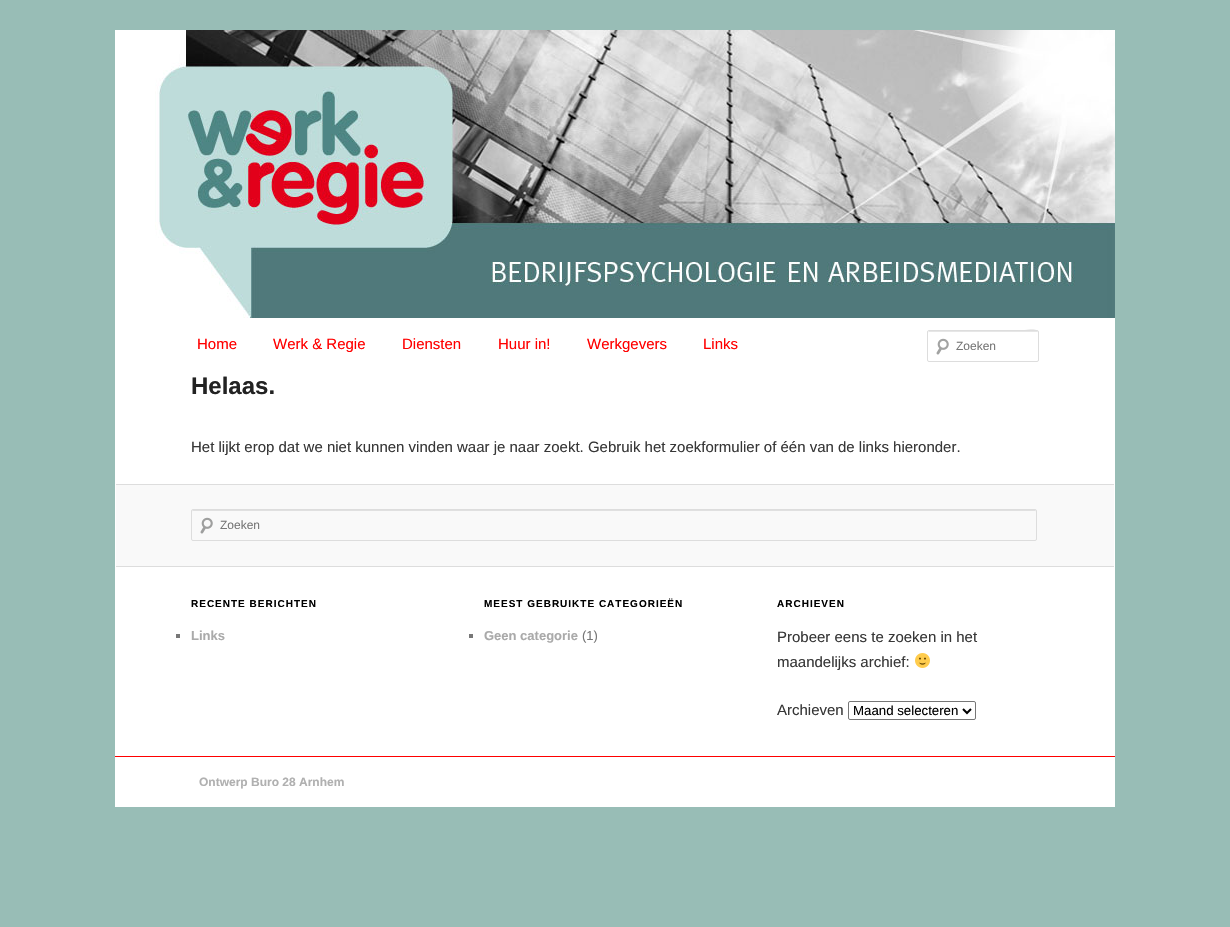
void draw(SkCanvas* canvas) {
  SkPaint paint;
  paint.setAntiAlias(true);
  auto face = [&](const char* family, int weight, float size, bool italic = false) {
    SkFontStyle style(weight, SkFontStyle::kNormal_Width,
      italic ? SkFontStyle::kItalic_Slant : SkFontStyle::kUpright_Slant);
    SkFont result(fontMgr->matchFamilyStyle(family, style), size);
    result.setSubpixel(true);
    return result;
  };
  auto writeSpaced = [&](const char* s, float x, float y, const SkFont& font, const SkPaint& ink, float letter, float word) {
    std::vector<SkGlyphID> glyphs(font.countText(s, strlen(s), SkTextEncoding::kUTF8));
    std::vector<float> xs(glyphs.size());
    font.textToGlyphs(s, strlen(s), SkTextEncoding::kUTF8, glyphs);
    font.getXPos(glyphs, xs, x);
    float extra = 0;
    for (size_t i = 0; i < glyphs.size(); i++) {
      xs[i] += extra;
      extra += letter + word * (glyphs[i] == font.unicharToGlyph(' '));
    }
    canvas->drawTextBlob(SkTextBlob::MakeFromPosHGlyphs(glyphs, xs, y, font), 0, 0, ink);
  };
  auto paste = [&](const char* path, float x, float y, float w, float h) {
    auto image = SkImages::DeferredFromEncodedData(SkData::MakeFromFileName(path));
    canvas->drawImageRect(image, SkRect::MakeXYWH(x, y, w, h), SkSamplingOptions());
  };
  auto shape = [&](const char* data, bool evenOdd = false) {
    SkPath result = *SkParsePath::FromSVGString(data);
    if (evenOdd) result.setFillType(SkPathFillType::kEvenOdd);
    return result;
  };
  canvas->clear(0xff98bdb6);
  paint.setColor(0xffffffff);
  canvas->drawRect(SkRect::MakeXYWH(115, 30, 1000, 777), paint);
  paste("img/1.png", 155, 30, 960, 288);
  paste("img/2.png", 936, 338, 13, 17);
  paint.setColor(0xffe6e6e6);
  canvas->drawPath(shape("M929 332H1038V333C1038 326 1023 331 1019 331H929L928 333C928 332 928 332 929 332Z"), paint);
  paint.setStroke(true);
  paint.setStrokeWidth(1);
  paint.setColor(0xffdddddd);
  canvas->drawRoundRect(SkRect::MakeXYWH(927.5f, 330.5f, 111, 31), 1.5f, 1.5f, paint);
  paint.setStroke(false);
  {
    const struct { float x, y, w, h; SkColor color; } items[] = {
      {116, 485, 998, 81, 0xfff9f9f9},
      {116, 484, 998, 1, 0xffdddddd},
      {116, 566, 998, 1, 0xffdddddd},
    };
    for (auto [x, y, w, h, color] : items) {
      paint.setColor(color);
      canvas->drawRect(SkRect::MakeXYWH(x, y, w, h), paint);
    }
  }
  paste("img/3.png", 200, 517, 13, 17);
  paint.setColor(0xffe0e0e0);
  canvas->drawPath(shape("M193 511H1035C1036 511 1036 511 1036 512V511L1035 510H193L192 511V512C192 511 192 511 193 511Z"), paint);
  paint.setStroke(true);
  paint.setColor(0xffdddddd);
  canvas->drawRoundRect(SkRect::MakeXYWH(191.5f, 509.5f, 845, 31), 1.5f, 1.5f, paint);
  paint.setStroke(false);
  paint.setColor(0xff777777);
  canvas->drawRect(SkRect::MakeXYWH(176, 634, 4, 4), paint);
  canvas->drawRect(SkRect::MakeXYWH(469, 634, 4, 4), paint);
  paste("img/4.png", 915, 653, 15, 15);
  paint.setStroke(true);
  paint.setColor(0xff767676);
  canvas->drawRoundRect(SkRect::MakeXYWH(848.5f, 701.5f, 127, 18), 1.5f, 1.5f, paint);
  paint.setStrokeWidth(2);
  paint.setColor(0xff000000);
  canvas->drawPath(shape("M963 709L967 713L971 709"), paint);
  paint.setStroke(false);
  paint.setColor(0xffff0000);
  canvas->drawRect(SkRect::MakeXYWH(115, 756, 1000, 1), paint);
  auto f0 = face("Liberation Sans", 400, 15);
  {
    const struct { const char* s; float x, y; } items[] = {
      {"Home", 197, 349},
      {"Werk & Regie", 273, 349},
      {"Diensten", 402, 349},
      {"Huur in!", 498, 349},
      {"Werkgevers", 587, 349},
      {"Links", 703, 349},
    };
    for (auto [s, x, y] : items) {
      canvas->drawString(s, x, y, f0, paint);
    }
  }
  auto f1 = face("Liberation Sans", 400, 12);
  paint.setColor(0xff777777);
  canvas->drawString("Zoeken", 956, 350, f1, paint);
  auto f2 = face("Liberation Sans", 700, 24);
  paint.setColor(0xff222222);
  canvas->drawString("Helaas.", 191, 394, f2, paint);
  paint.setColor(0xff373737);
  canvas->drawString("Het lijkt erop dat we niet kunnen vinden waar je naar zoekt. Gebruik het zoekformulier of één van de links hieronder.", 191, 452, f0, paint);
  paint.setColor(0xff777777);
  canvas->drawString("Zoeken", 220, 529, f1, paint);
  auto f3 = face("Liberation Sans", 700, 10);
  paint.setColor(0xff000000);
  writeSpaced("RECENTE BERICHTEN", 191, 607, f3, paint, 1, 0);
  auto f4 = face("Liberation Sans", 700, 13);
  paint.setColor(0xffaaaaaa);
  canvas->drawString("Links", 191, 640, f4, paint);
  paint.setColor(0xff000000);
  writeSpaced("MEEST GEBRUIKTE CATEGORIEËN", 484, 607, f3, paint, 1, 0);
  paint.setColor(0xffaaaaaa);
  canvas->drawString("Geen categorie", 484, 640, f4, paint);
  auto f5 = face("Liberation Sans", 400, 13);
  paint.setColor(0xff777777);
  canvas->drawString("(1)", 582, 640, f5, paint);
  paint.setColor(0xff000000);
  writeSpaced("ARCHIEVEN", 777, 607, f3, paint, 1, 0);
  paint.setColor(0xff373737);
  {
    const struct { const char* s; float x, y; } items[] = {
      {"Probeer eens te zoeken in het", 777, 642},
      {"maandelijks archief:", 777, 667},
      {"Archieven", 777, 715},
    };
    for (auto [s, x, y] : items) {
      canvas->drawString(s, x, y, f0, paint);
    }
  }
  auto f6 = face("Liberation Sans", 400, 13.25f);
  paint.setColor(0xff000000);
  canvas->drawString("Maand selecteren", 853, 715, f6, paint);
  auto f7 = face("Liberation Sans", 700, 12);
  paint.setColor(0xffb0b0b0);
  canvas->drawString("Ontwerp Buro 28 Arnhem", 199, 786, f7, paint);
}
